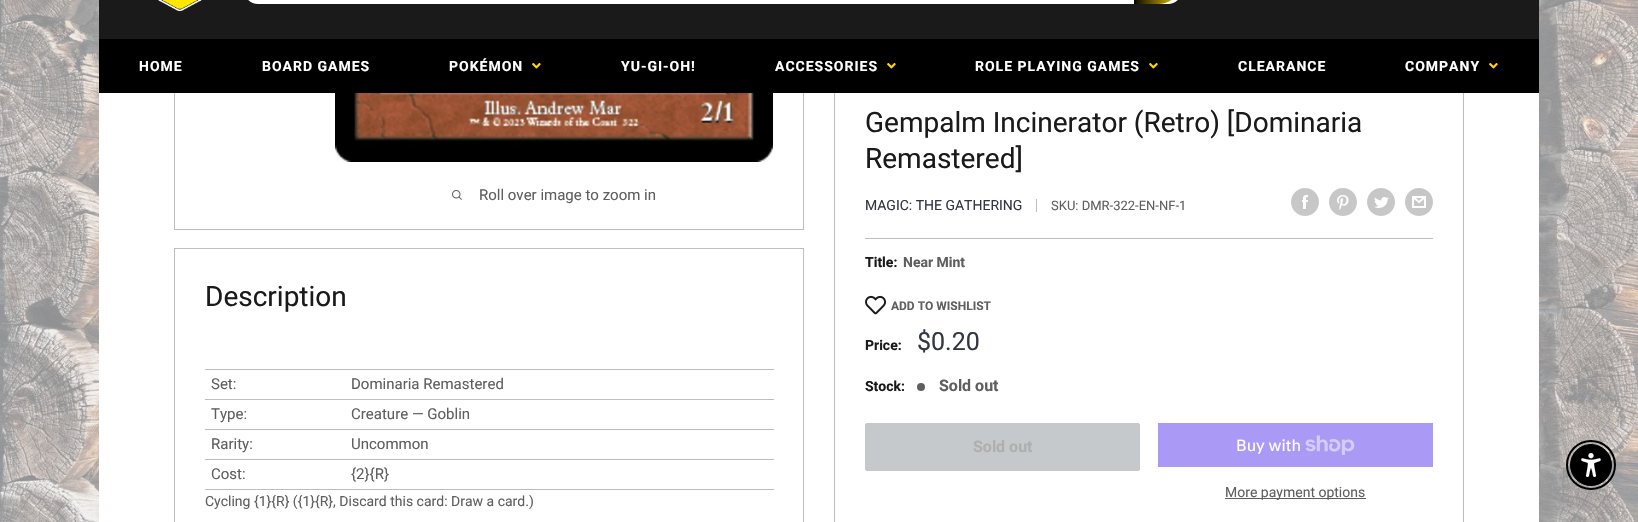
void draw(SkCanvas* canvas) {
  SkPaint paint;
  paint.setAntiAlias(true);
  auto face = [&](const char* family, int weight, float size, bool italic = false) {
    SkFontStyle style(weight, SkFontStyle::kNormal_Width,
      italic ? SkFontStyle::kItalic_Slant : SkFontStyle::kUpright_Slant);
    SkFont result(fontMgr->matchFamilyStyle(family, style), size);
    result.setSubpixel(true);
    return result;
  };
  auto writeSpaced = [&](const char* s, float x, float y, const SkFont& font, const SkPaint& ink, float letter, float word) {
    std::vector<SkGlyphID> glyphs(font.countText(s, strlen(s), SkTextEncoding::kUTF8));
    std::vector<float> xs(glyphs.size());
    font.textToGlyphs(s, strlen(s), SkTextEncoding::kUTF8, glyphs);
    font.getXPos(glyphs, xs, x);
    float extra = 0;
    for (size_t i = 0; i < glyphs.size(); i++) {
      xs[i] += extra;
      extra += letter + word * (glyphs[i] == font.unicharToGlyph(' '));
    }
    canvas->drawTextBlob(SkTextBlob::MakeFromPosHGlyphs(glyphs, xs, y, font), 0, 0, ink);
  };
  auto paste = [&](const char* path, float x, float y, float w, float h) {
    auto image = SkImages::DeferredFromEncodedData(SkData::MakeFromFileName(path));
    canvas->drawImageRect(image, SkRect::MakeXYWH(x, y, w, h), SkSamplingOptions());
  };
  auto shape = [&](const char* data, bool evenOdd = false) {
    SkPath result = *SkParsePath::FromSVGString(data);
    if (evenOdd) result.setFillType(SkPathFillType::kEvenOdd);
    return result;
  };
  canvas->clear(0xfff2f2f2);
  paste("img/1.png", 0, 0, 1638, 522);
  paint.setColor(0xffffffff);
  canvas->drawRect(SkRect::MakeXYWH(99, 93, 1440, 429), paint);
  paint.setStroke(true);
  paint.setStrokeWidth(1);
  paint.setColor(0xffbdbdbd);
  canvas->drawRect(SkRect::MakeXYWH(174.5f, -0.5f, 629, 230), paint);
  paint.setStroke(false);
  paint.setColor(0xff1a1a1a);
  canvas->drawRect(SkRect::MakeXYWH(99, 0, 1440, 39), paint);
  paint.setColor(0xfffefefe);
  canvas->drawRoundRect(SkRect::MakeXYWH(244, -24, 938, 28), 24, 24, paint);
  {
    const SkColor colors[] = {0xffffd700, 0xff000000};
    const float stops[] = {0, 1};
    const SkPoint ends[] = {{1183, -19}, {1133, -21}};
    paint.setShader(SkGradientShader::MakeLinear(ends, colors, stops, 2, SkTileMode::kClamp));
    paint.setAlpha(255);
  }
  canvas->drawPath(shape("M1134-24H1158C1171.5-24 1182-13.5 1182 0V-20C1182-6.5 1171.5 4 1158 4H1134Z"), paint);
  paste("img/2.png", 158, 0, 44, 11);
  paint.setStroke(true);
  paint.setShader(nullptr);
  paint.setColor(0xffbdbdbd);
  canvas->drawRect(SkRect::MakeXYWH(834.5f, 85.5f, 629, 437), paint);
  paint.setStroke(false);
  paint.setColor(0xff000000);
  canvas->drawRect(SkRect::MakeXYWH(99, 39, 1440, 54), paint);
  paste("img/3.png", 532, 63, 9, 6);
  paste("img/3.png", 887, 63, 9, 6);
  paste("img/3.png", 1149, 63, 9, 6);
  paste("img/3.png", 1489, 63, 9, 6);
  paste("img/4.png", 335, 93, 438, 69);
  paste("img/5.png", 452, 190, 10, 10);
  paint.setColor(0xffbdbdbd);
  canvas->drawRect(SkRect::MakeXYWH(1036, 199, 1, 13), paint);
  paste("img/6.png", 1291, 188, 28, 28);
  paste("img/7.png", 1329, 188, 28, 28);
  paste("img/8.png", 1367, 188, 28, 28);
  paste("img/9.png", 1405, 188, 28, 28);
  canvas->drawRect(SkRect::MakeXYWH(865, 238, 568, 1), paint);
  paste("img/10.png", 865, 295, 21, 20);
  paint.setColor(0xff5f5f5f);
  canvas->drawCircle(921, 387, 4, paint);
  paint.setColor(0xffc5c9cb);
  canvas->drawRoundRect(SkRect::MakeXYWH(865.5f, 423.5f, 274, 47), 1.5f, 1.5f, paint);
  paint.setStroke(true);
  canvas->drawRoundRect(SkRect::MakeXYWH(865.5f, 423.5f, 274, 47), 1.5f, 1.5f, paint);
  paint.setStroke(false);
  paint.setColor(0xffaa99f5);
  canvas->drawRect(SkRect::MakeXYWH(1158, 423, 275, 44), paint);
  paste("img/11.png", 1305, 435, 50, 20);
  paint.setColor(0xff5f5f5f);
  canvas->drawRect(SkRect::MakeXYWH(1225, 498, 141, 1), paint);
  paint.setStroke(true);
  paint.setColor(0xffbdbdbd);
  canvas->drawRect(SkRect::MakeXYWH(174.5f, 248.5f, 629, 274), paint);
  paint.setStroke(false);
  {
    const struct { float x, y, w, h; SkColor color; } items[] = {
      {205, 369, 569, 1, 0xffbdbdbd},
      {205, 399, 569, 1, 0xffbdbdbd},
      {205, 429, 569, 1, 0xffbdbdbd},
      {205, 459, 569, 1, 0xffbdbdbd},
      {205, 489, 569, 1, 0xffbdbdbd},
    };
    for (auto [x, y, w, h, color] : items) {
      paint.setColor(color);
      canvas->drawRect(SkRect::MakeXYWH(x, y, w, h), paint);
    }
  }
  paint.setStroke(true);
  paint.setStrokeWidth(2);
  paint.setColor(0xff000000);
  canvas->drawCircle(1591, 465, 24, paint);
  paint.setStroke(false);
  canvas->drawCircle(1591, 465, 20.5f, paint);
  paint.setStroke(true);
  paint.setStrokeWidth(1);
  canvas->drawCircle(1591, 465, 20.5f, paint);
  paste("img/12.png", 1581, 453, 20, 24);
  auto f0 = face("Roboto", 700, 14);
  paint.setStroke(false);
  paint.setColor(0xffffffff);
  {
    const struct { const char* s; float x, y; } items[] = {
      {"HOME", 139, 71},
      {"BOARD GAMES", 262, 71},
      {"POKÉMON", 449, 71},
      {"YU-GI-OH!", 621, 71},
      {"ACCESSORIES", 775, 71},
      {"ROLE PLAYING GAMES", 975, 71},
      {"CLEARANCE", 1238, 71},
      {"COMPANY", 1405, 71},
    };
    for (auto [s, x, y] : items) {
      writeSpaced(s, x, y, f0, paint, 1, 0);
    }
  }
  auto f1 = face("Roboto", 400, 15);
  paint.setColor(0xff5f5f5f);
  canvas->drawString("Roll over image to zoom in", 479, 200, f1, paint);
  auto f2 = face("Roboto", 400, 28);
  paint.setColor(0xff1a1a1a);
  canvas->drawString("Gempalm Incinerator (Retro) [Dominaria", 865, 132, f2, paint);
  canvas->drawString("Remastered]", 865, 168, f2, paint);
  auto f3 = face("Roboto", 400, 14);
  paint.setColor(0xff333745);
  canvas->drawString("MAGIC: THE GATHERING", 865, 210, f3, paint);
  auto f4 = face("Roboto", 400, 13);
  paint.setColor(0xff5f5f5f);
  canvas->drawString("SKU: DMR-322-EN-NF-1", 1051, 210, f4, paint);
  paint.setColor(0xff1a1a1a);
  canvas->drawString("Title:", 865, 267, f0, paint);
  paint.setColor(0xff5f5f5f);
  canvas->drawString("Near Mint", 903, 267, f0, paint);
  auto f5 = face("Roboto", 700, 12);
  canvas->drawString("ADD TO WISHLIST", 891, 310, f5, paint);
  paint.setColor(0xff1a1a1a);
  canvas->drawString("Price:", 865, 350, f0, paint);
  auto f6 = face("Roboto", 400, 25);
  paint.setColor(0xff333745);
  canvas->drawString("$0.20", 917, 350, f6, paint);
  paint.setColor(0xff1a1a1a);
  canvas->drawString("Stock:", 865, 391, f0, paint);
  auto f7 = face("Roboto", 700, 16);
  paint.setColor(0xff5f5f5f);
  canvas->drawString("Sold out", 939, 391, f7, paint);
  paint.setColor(0xffafafaf);
  canvas->drawString("Sold out", 973, 452, f7, paint);
  auto f8 = face("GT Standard", 400, 16);
  paint.setColor(0xffffffff);
  canvas->drawString("Buy with", 1236, 451, f8, paint);
  paint.setColor(0xff5f5f5f);
  canvas->drawString("More payment options", 1225, 497, f3, paint);
  paint.setColor(0xff1a1a1a);
  canvas->drawString("Description", 205, 306, f2, paint);
  paint.setColor(0xff5f5f5f);
  {
    const struct { const char* s; float x, y; } items[] = {
      {"Set:", 211, 389},
      {"Dominaria Remastered", 351, 389},
      {"Type:", 211, 419},
      {"Creature — Goblin", 351, 419},
      {"Rarity:", 211, 449},
      {"Uncommon", 351, 449},
      {"Cost:", 211, 479},
      {"{2}{R}", 351, 479},
    };
    for (auto [s, x, y] : items) {
      canvas->drawString(s, x, y, f1, paint);
    }
  }
  canvas->drawString("Cycling {1}{R} ({1}{R}, Discard this card: Draw a card.)", 205, 506, f3, paint);
}
